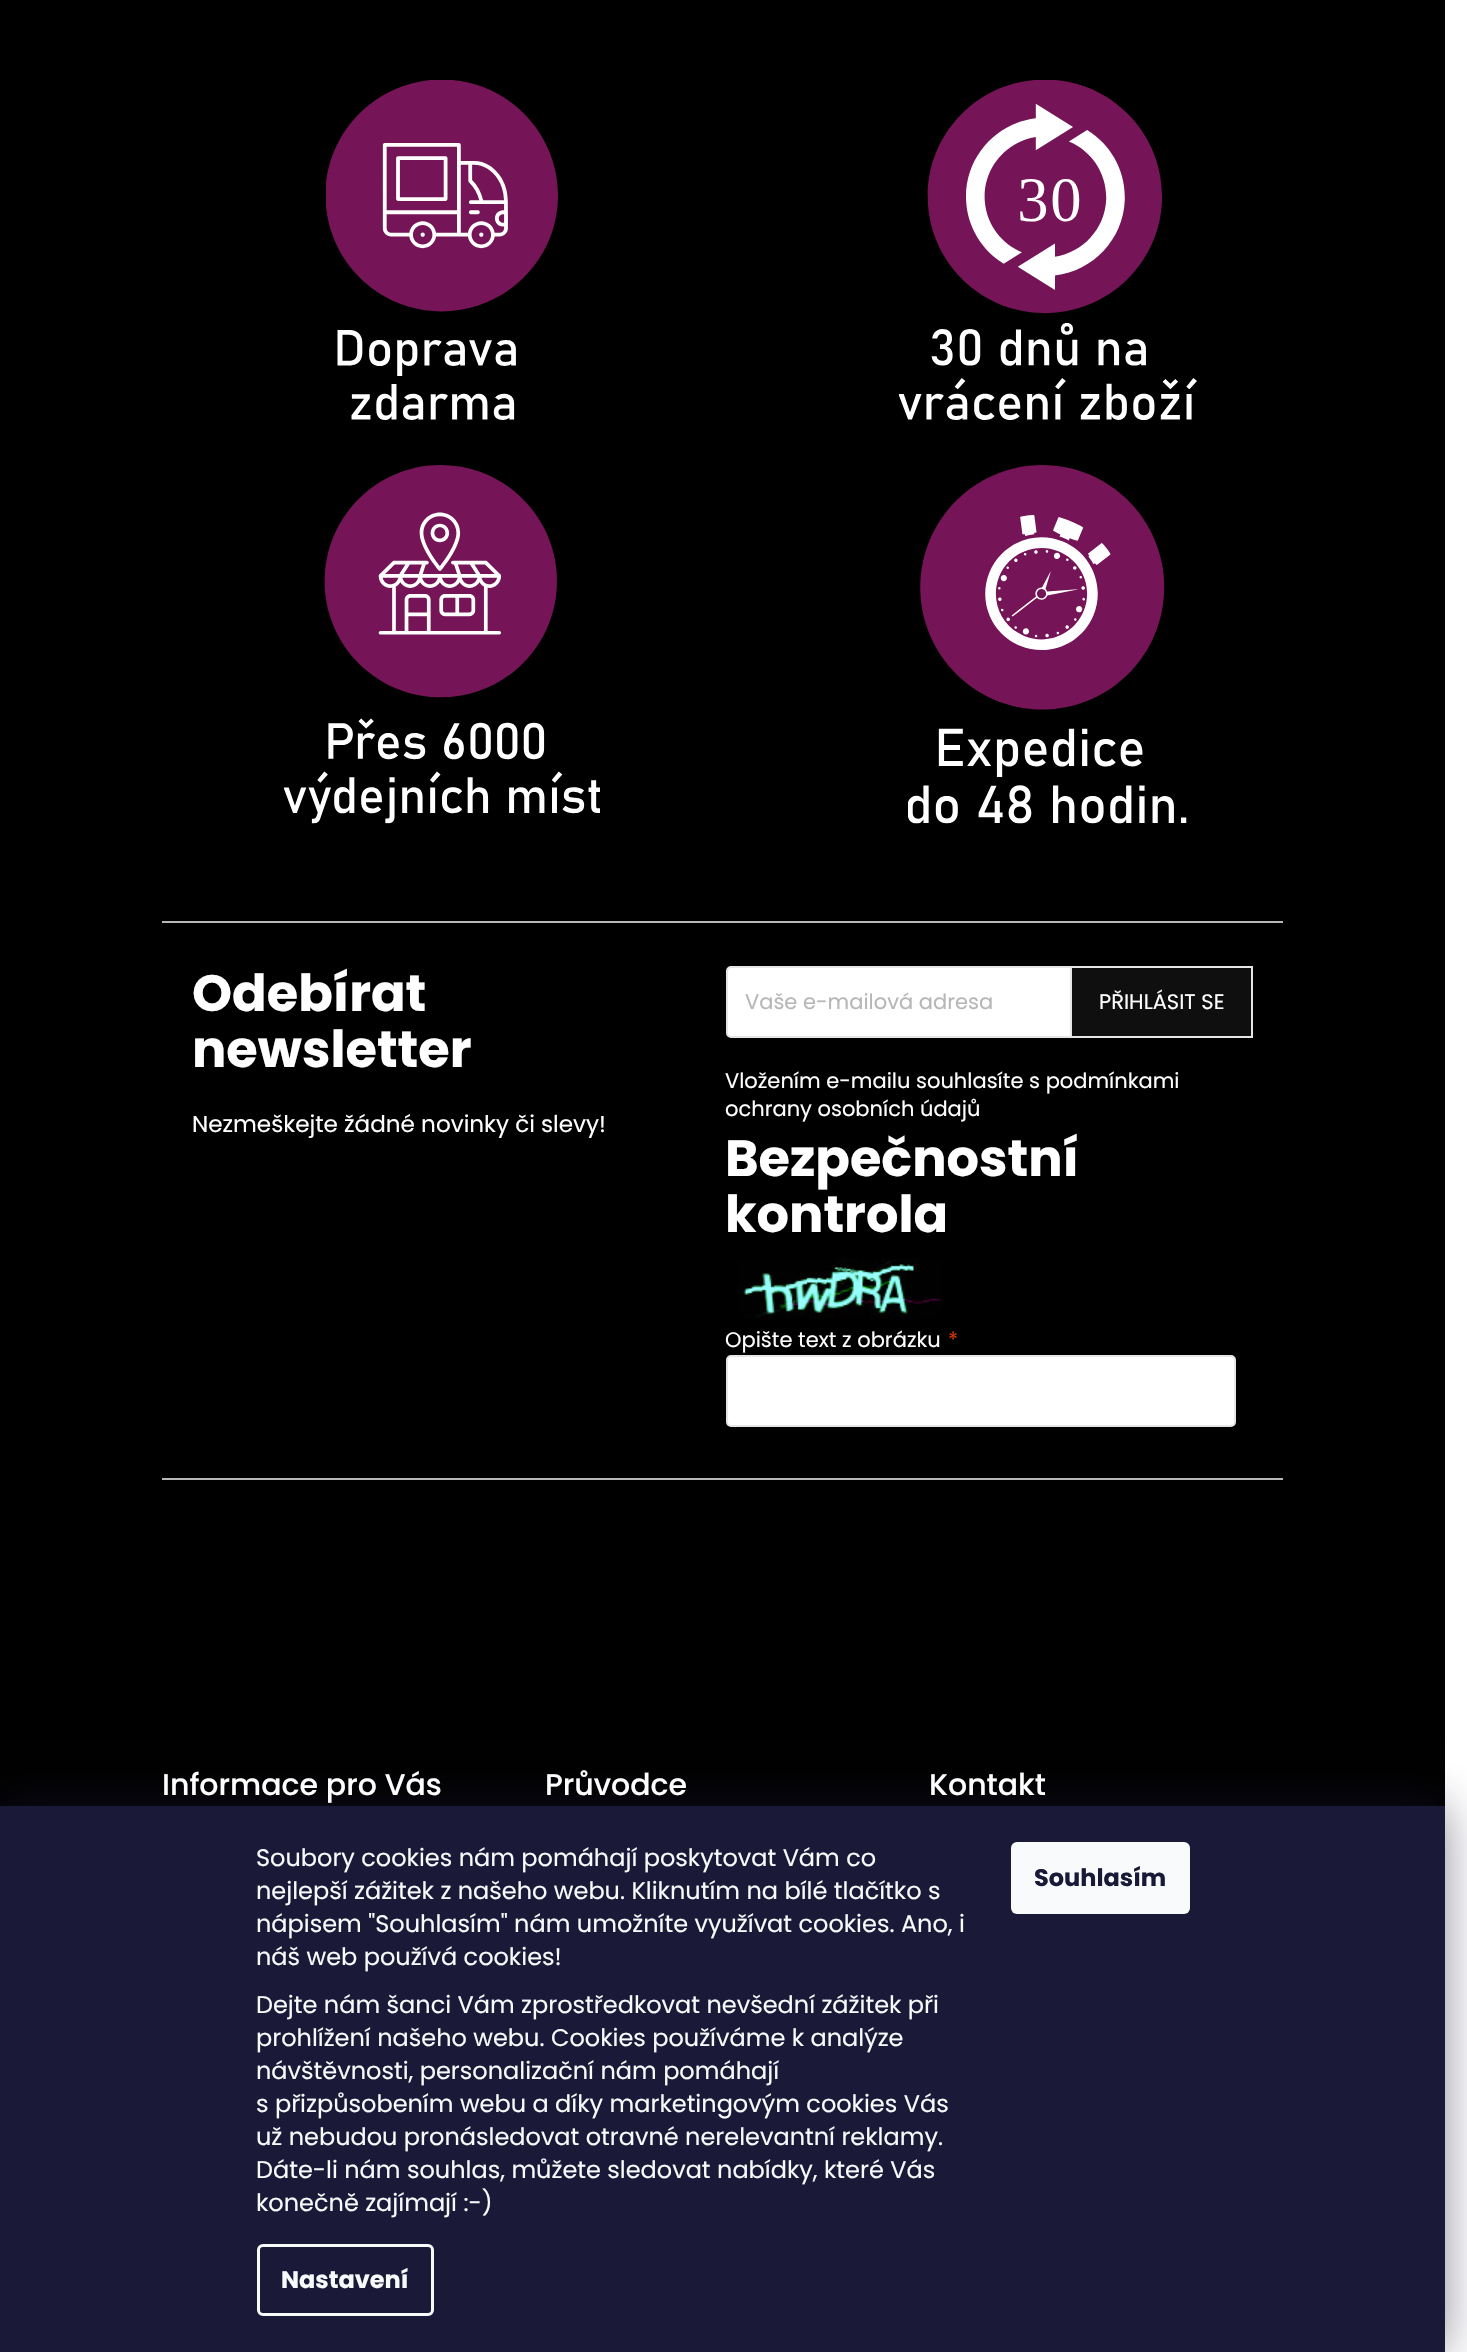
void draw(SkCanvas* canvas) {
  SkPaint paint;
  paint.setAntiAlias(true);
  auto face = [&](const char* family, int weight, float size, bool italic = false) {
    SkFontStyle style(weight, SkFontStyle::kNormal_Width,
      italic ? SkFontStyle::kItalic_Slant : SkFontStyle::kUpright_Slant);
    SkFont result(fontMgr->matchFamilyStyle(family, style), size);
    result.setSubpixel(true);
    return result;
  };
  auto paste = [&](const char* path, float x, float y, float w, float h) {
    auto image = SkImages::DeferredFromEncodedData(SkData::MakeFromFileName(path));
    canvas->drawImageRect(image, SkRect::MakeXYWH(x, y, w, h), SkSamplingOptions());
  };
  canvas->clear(0xffffffff);
  paint.setColor(0xff000000);
  canvas->drawRect(SkRect::MakeXYWH(0, 0, 1445, 1806), paint);
  paste("img/1.png", 326, 80, 232, 340);
  paste("img/2.png", 899, 80, 298, 340);
  paste("img/3.png", 284, 465, 316, 359);
  paste("img/4.png", 908, 465, 279, 359);
  paint.setColor(0xffb8b6b6);
  canvas->drawRect(SkRect::MakeXYWH(162, 921, 1121, 2), paint);
  canvas->drawRect(SkRect::MakeXYWH(162, 1478, 1121, 2), paint);
  paint.setColor(0xffffffff);
  canvas->drawRoundRect(SkRect::MakeXYWH(727, 967, 525, 70), 4, 4, paint);
  paint.setStroke(true);
  paint.setStrokeWidth(2);
  paint.setColor(0xffe6e6e6);
  canvas->drawRoundRect(SkRect::MakeXYWH(727, 967, 525, 70), 4, 4, paint);
  paint.setStroke(false);
  paint.setColor(0xff0f0f0f);
  canvas->drawRect(SkRect::MakeXYWH(1071, 967, 181, 70), paint);
  paint.setStroke(true);
  paint.setColor(0xffe6e6e6);
  canvas->drawRect(SkRect::MakeXYWH(1071, 967, 181, 70), paint);
  paste("img/5.png", 738, 1258, 204, 61);
  paint.setStroke(false);
  paint.setColor(0xffffffff);
  canvas->drawRoundRect(SkRect::MakeXYWH(727, 1356, 508, 70), 4, 4, paint);
  paint.setStroke(true);
  paint.setColor(0xffe6e6e6);
  canvas->drawRoundRect(SkRect::MakeXYWH(727, 1356, 508, 70), 4, 4, paint);
  paint.setStroke(false);
  paint.setColor(0x801b1939);
  paint.setMaskFilter(SkMaskFilter::MakeBlur(kNormal_SkBlurStyle, 22.5f));
  canvas->drawRect(SkRect::MakeXYWH(0, 1806, 1445, 546), paint);
  paint.setMaskFilter(nullptr);
  paint.setColor(0xff1a1937);
  canvas->drawRect(SkRect::MakeXYWH(0, 1806, 1445, 546), paint);
  paint.setStroke(true);
  paint.setStrokeWidth(3);
  paint.setColor(0xfff8fafb);
  canvas->drawRoundRect(SkRect::MakeXYWH(258.5f, 2245.5f, 174, 69), 4.5f, 4.5f, paint);
  paint.setStroke(false);
  canvas->drawRoundRect(SkRect::MakeXYWH(1011, 1842, 179, 72), 6, 6, paint);
  auto f0 = face("Poppins", 700, 51);
  paint.setColor(0xffffffff);
  canvas->drawString("Odebírat", 192, 1011, f0, paint);
  canvas->drawString("newsletter", 192, 1067, f0, paint);
  auto f1 = face("Poppins", 400, 23.1f);
  canvas->drawString("Nezmeškejte žádné novinky či slevy!", 192, 1132, f1, paint);
  auto f2 = face("Poppins", 400, 21);
  paint.setColor(0xffb6b6b6);
  canvas->drawString("Vaše e-mailová adresa", 745, 1009, f2, paint);
  paint.setColor(0xffffffff);
  {
    const struct { const char* s; float x, y; } items[] = {
      {"PŘIHLÁSIT SE", 1099, 1009},
      {"Vložením e-mailu souhlasíte s podmínkami", 725, 1088},
      {"ochrany osobních údajů", 725, 1116},
    };
    for (auto [s, x, y] : items) {
      canvas->drawString(s, x, y, f2, paint);
    }
  }
  canvas->drawString("Bezpečnostní", 725, 1176, f0, paint);
  canvas->drawString("kontrola", 725, 1232, f0, paint);
  canvas->drawString("Opište text z obrázku", 725, 1347, f2, paint);
  paint.setColor(0xffd63500);
  canvas->drawString("*", 948, 1347, f2, paint);
  auto f3 = face("Poppins", 500, 30);
  paint.setColor(0xffffffff);
  {
    const struct { const char* s; float x, y; } items[] = {
      {"Informace pro Vás", 162, 1795},
      {"Průvodce", 545, 1795},
      {"Kontakt", 929, 1795},
    };
    for (auto [s, x, y] : items) {
      canvas->drawString(s, x, y, f3, paint);
    }
  }
  auto f4 = face("Poppins", 400, 24);
  paint.setColor(0xfff8fafb);
  {
    const struct { const char* s; float x, y; } items[] = {
      {"Soubory cookies nám pomáhají poskytovat Vám co", 256, 1866},
      {"nejlepší zážitek z našeho webu. Kliknutím na bílé tlačítko s", 256, 1899},
      {"nápisem \"Souhlasím\" nám umožníte využívat cookies. Ano, i", 256, 1932},
      {"náš web používá cookies!", 256, 1965},
      {"Dejte nám šanci Vám zprostředkovat nevšední zážitek při", 256, 2013},
      {"prohlížení našeho webu. Cookies používáme k analýze", 256, 2046},
      {"návštěvnosti, personalizační nám pomáhají", 256, 2079},
      {"s přizpůsobením webu a díky marketingovým cookies Vás", 256, 2112},
      {"už nebudou pronásledovat otravné nerelevantní reklamy.", 256, 2145},
      {"Dáte-li nám souhlas, můžete sledovat nabídky, které Vás", 256, 2178},
      {"konečně zajímají :-)", 256, 2211},
    };
    for (auto [s, x, y] : items) {
      canvas->drawString(s, x, y, f4, paint);
    }
  }
  auto f5 = face("Poppins", 700, 24);
  canvas->drawString("Nastavení", 281, 2288, f5, paint);
  paint.setColor(0xff1a1937);
  canvas->drawString("Souhlasím", 1034, 1886, f5, paint);
}
